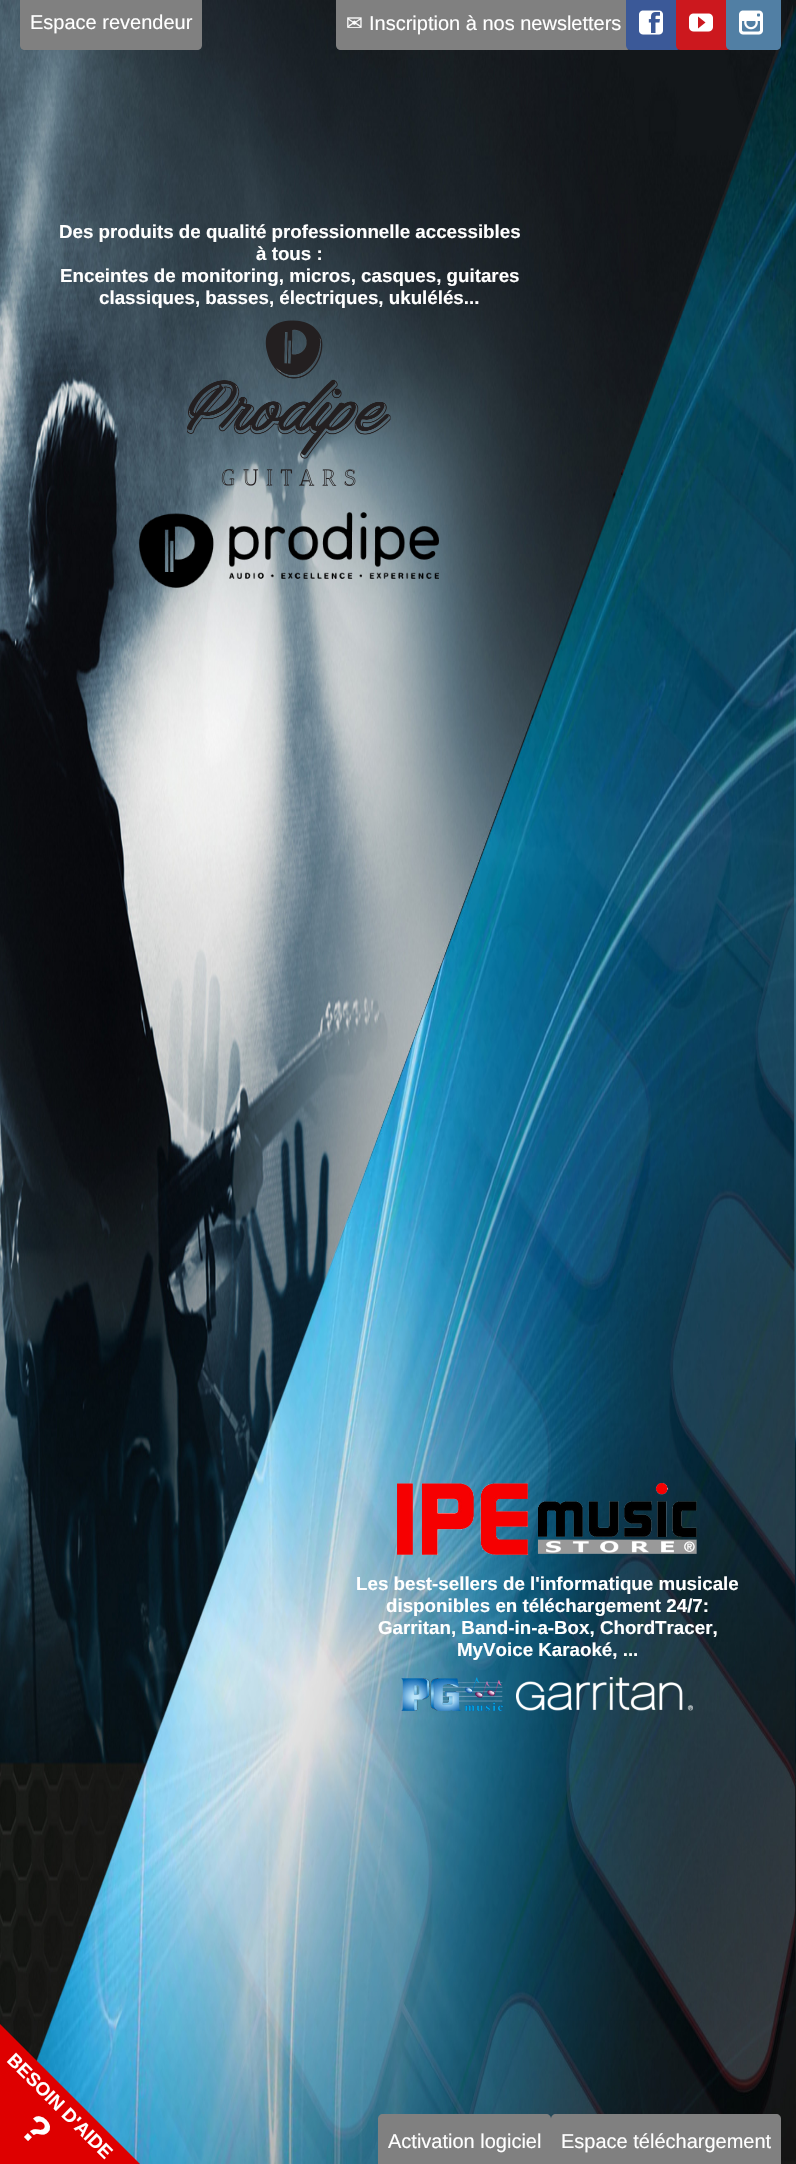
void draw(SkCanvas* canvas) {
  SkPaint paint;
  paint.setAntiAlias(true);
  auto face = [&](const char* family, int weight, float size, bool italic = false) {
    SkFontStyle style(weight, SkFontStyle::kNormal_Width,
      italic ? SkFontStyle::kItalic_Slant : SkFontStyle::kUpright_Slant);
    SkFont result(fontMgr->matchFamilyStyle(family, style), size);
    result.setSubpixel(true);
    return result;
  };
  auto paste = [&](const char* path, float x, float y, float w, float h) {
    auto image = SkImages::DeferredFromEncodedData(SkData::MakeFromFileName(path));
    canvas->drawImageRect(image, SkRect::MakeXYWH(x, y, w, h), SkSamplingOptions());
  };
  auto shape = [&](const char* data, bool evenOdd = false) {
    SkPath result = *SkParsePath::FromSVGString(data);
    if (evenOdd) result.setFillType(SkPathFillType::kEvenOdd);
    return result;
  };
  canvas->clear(0xffffffff);
  paste("img/1.png", 0, 0, 796, 2164);
  paint.setColor(0xff808080);
  canvas->drawPath(shape("M20-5H202V45C202 48 200 50 197 50H25C22 50 20 48 20 45Z"), paint);
  canvas->drawPath(shape("M336-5H631V45C631 48 629 50 626 50H341C338 50 336 48 336 45Z"), paint);
  paint.setColor(0xff3b5998);
  canvas->drawPath(shape("M626-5H681V45C681 48 679 50 676 50H631C628 50 626 48 626 45Z"), paint);
  paste("img/2.png", 639, 10, 24, 25);
  paint.setColor(0xffcc181e);
  canvas->drawPath(shape("M676-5H731V45C731 48 729 50 726 50H681C678 50 676 48 676 45Z"), paint);
  paste("img/3.png", 689, 13, 24, 19);
  paint.setColor(0xff517fa4);
  canvas->drawPath(shape("M726-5H781V45C781 48 779 50 776 50H731C728 50 726 48 726 45Z"), paint);
  paste("img/4.png", 739, 10, 24, 25);
  paste("img/5.png", 187, 320, 204, 166);
  paste("img/6.png", 139, 512, 300, 76);
  paste("img/7.png", 397, 1482, 300, 74);
  paste("img/8.png", 401, 1677, 102, 34);
  paste("img/9.png", 516, 1677, 177, 34);
  paint.setColor(0xff808080);
  canvas->drawPath(shape("M383 2114H546C549 2114 551 2116 551 2119V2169H378V2119C378 2116 380 2114 383 2114Z"), paint);
  canvas->drawPath(shape("M556 2114H776C779 2114 781 2116 781 2119V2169H551V2119C551 2116 553 2114 556 2114Z"), paint);
  paint.setColor(0xffde0000);
  canvas->drawPath(shape("M0 2024L141 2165L0 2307L-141 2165Z"), paint);
  auto f0 = face("Liberation Sans", 400, 20);
  paint.setColor(0xffffffff);
  canvas->drawString("Espace revendeur", 30, 29, f0, paint);
  auto f1 = face("DejaVu Sans", 400, 20);
  canvas->drawString("✉", 346, 30, f1, paint);
  canvas->drawString("Inscription à nos newsletters", 369, 30, f0, paint);
  auto f2 = face("Liberation Sans", 700, 18.75f);
  {
    const struct { const char* s; float x, y; } items[] = {
      {"Des produits de qualité professionnelle accessibles", 59, 238},
      {"à tous :", 256, 260},
      {"Enceintes de monitoring, micros, casques, guitares", 60, 282},
      {"classiques, basses, électriques, ukulélés...", 99, 304},
      {"Les best-sellers de l'informatique musicale", 356, 1590},
      {"disponibles en téléchargement 24/7:", 386, 1612},
      {"Garritan, Band-in-a-Box, ChordTracer,", 378, 1634},
      {"MyVoice Karaoké, ...", 457, 1656},
    };
    for (auto [s, x, y] : items) {
      canvas->drawString(s, x, y, f2, paint);
    }
  }
  canvas->drawString("Activation logiciel", 388, 2148, f0, paint);
  canvas->drawString("Espace téléchargement", 561, 2148, f0, paint);
  canvas->save();
  canvas->rotate(45, 6, 2061);
  canvas->drawString("BESOIN D'AIDE", 6, 2061, f2, paint);
  canvas->restore();
  auto f3 = face("Liberation Sans", 700, 40);
  canvas->save();
  canvas->rotate(45, 18, 2131);
  canvas->drawString("?", 18, 2131, f3, paint);
  canvas->restore();
}
